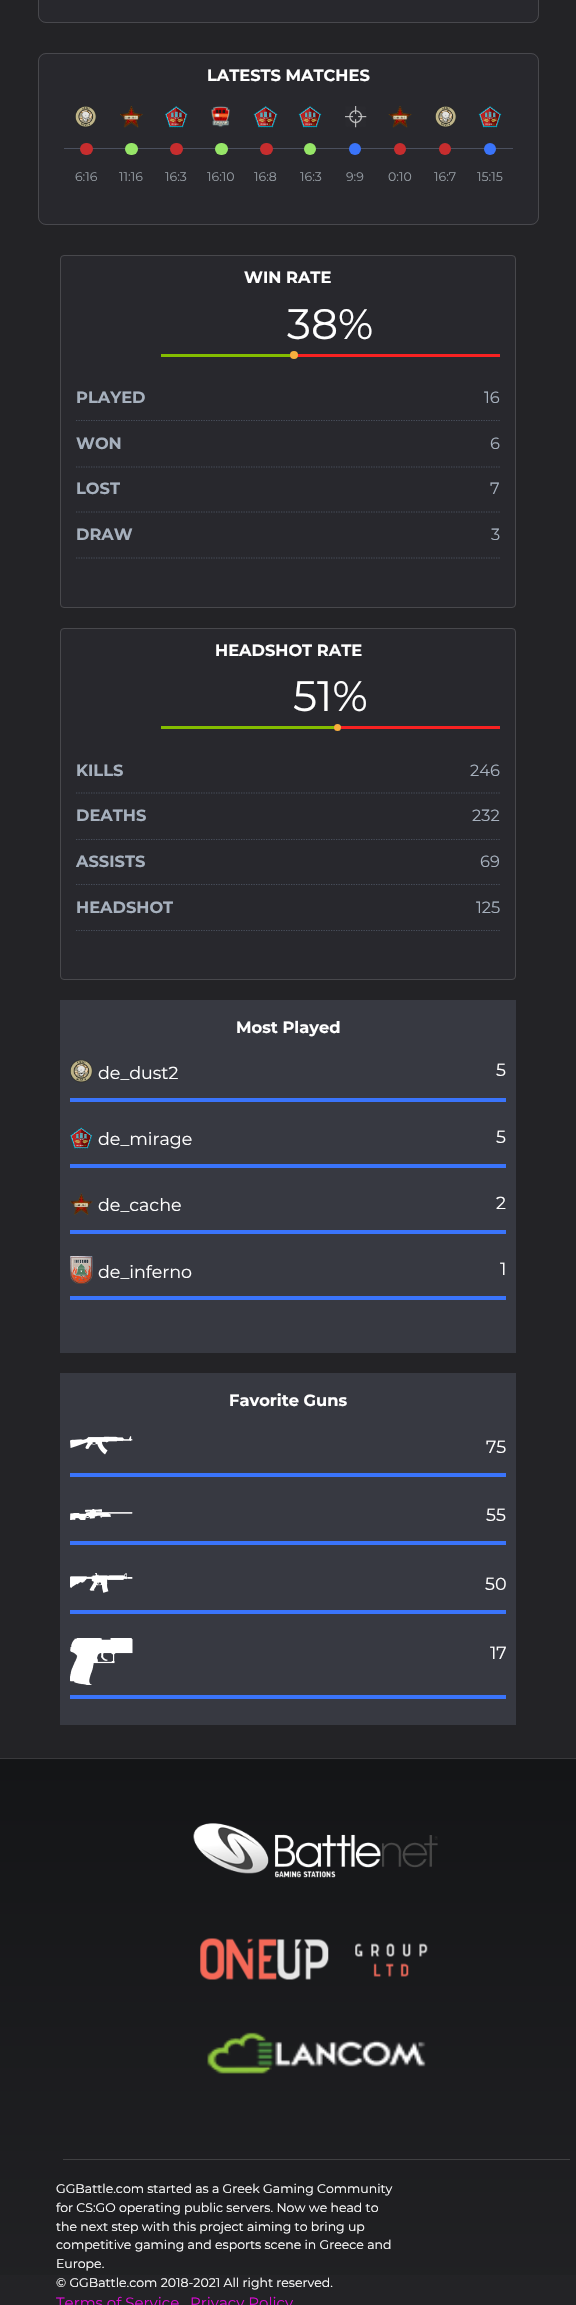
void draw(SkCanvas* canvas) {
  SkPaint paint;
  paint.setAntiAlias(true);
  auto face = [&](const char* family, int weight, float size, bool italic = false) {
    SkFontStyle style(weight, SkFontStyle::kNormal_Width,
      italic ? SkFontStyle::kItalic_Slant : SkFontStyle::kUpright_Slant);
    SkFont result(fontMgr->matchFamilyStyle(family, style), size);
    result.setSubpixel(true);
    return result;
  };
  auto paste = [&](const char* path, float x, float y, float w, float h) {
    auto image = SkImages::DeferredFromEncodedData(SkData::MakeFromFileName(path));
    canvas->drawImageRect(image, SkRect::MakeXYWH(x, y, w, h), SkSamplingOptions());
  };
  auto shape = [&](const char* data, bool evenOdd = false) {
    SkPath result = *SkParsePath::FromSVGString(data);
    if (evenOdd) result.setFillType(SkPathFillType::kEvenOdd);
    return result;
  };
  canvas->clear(0xff232326);
  paint.setColor(0xff28282d);
  canvas->drawRoundRect(SkRect::MakeXYWH(38, -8, 501, 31), 8, 8, paint);
  paint.setStroke(true);
  paint.setStrokeWidth(1);
  paint.setColor(0x26ffffff);
  canvas->drawRoundRect(SkRect::MakeXYWH(38.5f, -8.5f, 500, 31), 7.5f, 7.5f, paint);
  paint.setStroke(false);
  paint.setColor(0xff28282d);
  canvas->drawRoundRect(SkRect::MakeXYWH(38, 53, 501, 172), 8, 8, paint);
  paint.setStroke(true);
  paint.setColor(0x26ffffff);
  canvas->drawRoundRect(SkRect::MakeXYWH(38.5f, 53.5f, 500, 171), 7.5f, 7.5f, paint);
  paste("img/1.png", 75, 106, 22, 22);
  paint.setStroke(false);
  paint.setColor(0xff4b505e);
  canvas->drawRect(SkRect::MakeXYWH(64, 148, 449, 1), paint);
  paint.setColor(0xffc72d2e);
  canvas->drawRoundRect(SkRect::MakeXYWH(80, 143, 13, 12), 6, 6, paint);
  paste("img/2.png", 120, 106, 23, 22);
  paint.setColor(0xff97e668);
  canvas->drawRoundRect(SkRect::MakeXYWH(125, 143, 13, 12), 6, 6, paint);
  paste("img/3.png", 165, 106, 23, 22);
  paint.setColor(0xffc72d2e);
  canvas->drawRoundRect(SkRect::MakeXYWH(170, 143, 13, 12), 6, 6, paint);
  paste("img/4.png", 211, 106, 19, 22);
  paint.setColor(0xff97e668);
  canvas->drawRoundRect(SkRect::MakeXYWH(215, 143, 13, 12), 6, 6, paint);
  paste("img/5.png", 253, 106, 25, 22);
  paint.setColor(0xffc72d2e);
  canvas->drawRoundRect(SkRect::MakeXYWH(260, 143, 13, 12), 6, 6, paint);
  paste("img/6.png", 298, 106, 24, 22);
  paint.setColor(0xff97e668);
  canvas->drawCircle(310, 149, 6, paint);
  paste("img/7.png", 345, 106, 22, 22);
  paint.setColor(0xff3a74fa);
  canvas->drawCircle(355, 149, 6, paint);
  paste("img/8.png", 388, 106, 24, 22);
  paint.setColor(0xffc72d2e);
  canvas->drawCircle(400, 149, 6, paint);
  paste("img/1.png", 435, 106, 22, 22);
  canvas->drawCircle(445, 149, 6, paint);
  paste("img/6.png", 478, 106, 24, 22);
  paint.setColor(0xff3a74fa);
  canvas->drawCircle(490, 149, 6, paint);
  paint.setColor(0xff28282d);
  canvas->drawRoundRect(SkRect::MakeXYWH(60.5f, 255.5f, 455, 352), 3.5f, 3.5f, paint);
  paint.setStroke(true);
  paint.setColor(0xff48484c);
  canvas->drawRoundRect(SkRect::MakeXYWH(60.5f, 255.5f, 455, 352), 3.5f, 3.5f, paint);
  paint.setStroke(false);
  paint.setColor(0xff84bd00);
  canvas->drawRect(SkRect::MakeXYWH(161, 354, 129, 3), paint);
  paint.setColor(0xfff82222);
  canvas->drawRect(SkRect::MakeXYWH(290, 354, 210, 3), paint);
  paint.setColor(0xfff7af3e);
  canvas->drawCircle(294, 355, 4, paint);
  paint.setStroke(true);
  paint.setStrokeWidth(1.2f);
  paint.setColor(0xff484e5b);
  paint.setPathEffect(SkDashPathEffect::Make({{1.25f, 1.25f}}, 0));
  canvas->drawPath(shape("M76 420.5H500"), paint);
  paint.setPathEffect(nullptr);
  paint.setPathEffect(SkDashPathEffect::Make({{1.25f, 1.25f}}, 0));
  canvas->drawPath(shape("M76 467H500"), paint);
  paint.setPathEffect(nullptr);
  paint.setPathEffect(SkDashPathEffect::Make({{1.25f, 1.25f}}, 0));
  canvas->drawPath(shape("M76 512H500"), paint);
  paint.setPathEffect(nullptr);
  paint.setPathEffect(SkDashPathEffect::Make({{1.25f, 1.25f}}, 0));
  canvas->drawPath(shape("M76 558H500"), paint);
  paint.setPathEffect(nullptr);
  paint.setStroke(false);
  paint.setColor(0xff28282d);
  canvas->drawRoundRect(SkRect::MakeXYWH(60.5f, 628.5f, 455, 351), 3.5f, 3.5f, paint);
  paint.setStroke(true);
  paint.setStrokeWidth(1);
  paint.setColor(0xff48484c);
  canvas->drawRoundRect(SkRect::MakeXYWH(60.5f, 628.5f, 455, 351), 3.5f, 3.5f, paint);
  paint.setStroke(false);
  paint.setColor(0xff84bd00);
  canvas->drawRect(SkRect::MakeXYWH(161, 726, 173, 3), paint);
  paint.setColor(0xfff82222);
  canvas->drawRect(SkRect::MakeXYWH(334, 726, 166, 3), paint);
  paint.setColor(0xfff7af3e);
  canvas->drawCircle(337.5f, 727.5f, 3.5f, paint);
  paint.setStroke(true);
  paint.setStrokeWidth(1.2f);
  paint.setColor(0xff484e5b);
  paint.setPathEffect(SkDashPathEffect::Make({{1.25f, 1.25f}}, 0));
  canvas->drawPath(shape("M76 793H500"), paint);
  paint.setPathEffect(nullptr);
  paint.setPathEffect(SkDashPathEffect::Make({{1.25f, 1.25f}}, 0));
  canvas->drawPath(shape("M76 839.5H500"), paint);
  paint.setPathEffect(nullptr);
  paint.setPathEffect(SkDashPathEffect::Make({{1.25f, 1.25f}}, 0));
  canvas->drawPath(shape("M76 884.5H500"), paint);
  paint.setPathEffect(nullptr);
  paint.setPathEffect(SkDashPathEffect::Make({{1.25f, 1.25f}}, 0));
  canvas->drawPath(shape("M76 930.5H500"), paint);
  paint.setPathEffect(nullptr);
  paint.setStroke(false);
  paint.setColor(0xff373941);
  canvas->drawRect(SkRect::MakeXYWH(60, 1000, 456, 353), paint);
  paste("img/9.png", 70, 1059, 23, 24);
  paint.setColor(0xff3a74fa);
  canvas->drawRect(SkRect::MakeXYWH(70, 1098, 436, 4), paint);
  paste("img/10.png", 70, 1127, 23, 22);
  canvas->drawRect(SkRect::MakeXYWH(70, 1164, 436, 4), paint);
  paste("img/11.png", 70, 1193, 23, 22);
  canvas->drawRect(SkRect::MakeXYWH(70, 1230, 436, 4), paint);
  paste("img/12.png", 70, 1256, 23, 28);
  canvas->drawRect(SkRect::MakeXYWH(70, 1296, 436, 4), paint);
  paint.setColor(0xff373941);
  canvas->drawRect(SkRect::MakeXYWH(60, 1373, 456, 352), paint);
  paste("img/13.png", 70, 1436, 63, 19);
  paint.setColor(0xff3a74fa);
  canvas->drawRect(SkRect::MakeXYWH(70, 1473, 436, 4), paint);
  paste("img/14.png", 70, 1509, 63, 11);
  canvas->drawRect(SkRect::MakeXYWH(70, 1541, 436, 4), paint);
  paste("img/15.png", 70, 1573, 63, 20);
  canvas->drawRect(SkRect::MakeXYWH(70, 1610, 436, 4), paint);
  paste("img/16.png", 70, 1638, 63, 47);
  canvas->drawRect(SkRect::MakeXYWH(70, 1695, 436, 4), paint);
  {
    const SkColor colors[] = {0xff141517, 0xff232326};
    const float stops[] = {0, 1};
    const SkPoint ends[] = {{288, 1759}, {288, 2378}};
    paint.setShader(SkGradientShader::MakeLinear(ends, colors, stops, 2, SkTileMode::kClamp));
    paint.setAlpha(255);
  }
  canvas->drawRect(SkRect::MakeXYWH(0, 1759, 576, 516), paint);
  paint.setShader(nullptr);
  paint.setColor(0xff39393c);
  canvas->drawRect(SkRect::MakeXYWH(0, 1758, 576, 1), paint);
  paste("img/17.png", 193, 1823, 245, 55);
  paste("img/18.png", 200, 1938, 228, 42);
  paste("img/19.png", 207, 2032, 219, 42);
  paint.setColor(0xff404042);
  canvas->drawRect(SkRect::MakeXYWH(63, 2159, 507, 1), paint);
  auto f0 = face("Montserrat", 700, 16.25f);
  paint.setColor(0xffffffff);
  canvas->drawString("LATESTS MATCHES", 207, 81, f0, paint);
  auto f1 = face("Montserrat", 400, 12.5f);
  paint.setColor(0xff949ba2);
  {
    const struct { const char* s; float x, y; } items[] = {
      {"6:16", 75, 181},
      {"11:16", 119, 181},
      {"16:3", 165, 181},
      {"16:10", 207, 181},
      {"16:8", 254, 181},
      {"16:3", 300, 181},
      {"9:9", 346, 181},
      {"0:10", 388, 181},
      {"16:7", 434, 181},
      {"15:15", 477, 181},
    };
    for (auto [s, x, y] : items) {
      canvas->drawString(s, x, y, f1, paint);
    }
  }
  paint.setColor(0xffffffff);
  canvas->drawString("WIN RATE", 244, 283, f0, paint);
  auto f2 = face("Montserrat", 400, 42.5f);
  canvas->drawString("38%", 287, 339, f2, paint);
  paint.setColor(0xffa6b0bd);
  canvas->drawString("PLAYED", 76, 403, f0, paint);
  auto f3 = face("Montserrat", 400, 16.25f);
  canvas->drawString("16", 484, 403, f3, paint);
  canvas->drawString("WON", 76, 449, f0, paint);
  canvas->drawString("6", 490, 449, f3, paint);
  canvas->drawString("LOST", 76, 494, f0, paint);
  canvas->drawString("7", 490, 494, f3, paint);
  canvas->drawString("DRAW", 76, 540, f0, paint);
  canvas->drawString("3", 491, 540, f3, paint);
  paint.setColor(0xffffffff);
  canvas->drawString("HEADSHOT RATE", 215, 656, f0, paint);
  canvas->drawString("51%", 293, 711, f2, paint);
  paint.setColor(0xffa6b0bd);
  canvas->drawString("KILLS", 76, 776, f0, paint);
  canvas->drawString("246", 470, 776, f3, paint);
  canvas->drawString("DEATHS", 76, 821, f0, paint);
  canvas->drawString("232", 472, 821, f3, paint);
  canvas->drawString("ASSISTS", 76, 867, f0, paint);
  canvas->drawString("69", 480, 867, f3, paint);
  canvas->drawString("HEADSHOT", 76, 913, f0, paint);
  canvas->drawString("125", 476, 913, f3, paint);
  paint.setColor(0xffffffff);
  canvas->drawString("Most Played", 236, 1033, f0, paint);
  auto f4 = face("Montserrat", 400, 17.5f);
  {
    const struct { const char* s; float x, y; } items[] = {
      {"de_dust2", 98, 1079},
      {"5", 496, 1076},
      {"de_mirage", 98, 1145},
      {"5", 496, 1143},
      {"de_cache", 98, 1211},
      {"2", 496, 1209},
      {"de_inferno", 98, 1278},
      {"1", 500, 1275},
    };
    for (auto [s, x, y] : items) {
      canvas->drawString(s, x, y, f4, paint);
    }
  }
  canvas->drawString("Favorite Guns", 229, 1406, f0, paint);
  {
    const struct { const char* s; float x, y; } items[] = {
      {"75", 486, 1453},
      {"55", 486, 1521},
      {"50", 485, 1590},
      {"17", 490, 1659},
    };
    for (auto [s, x, y] : items) {
      canvas->drawString(s, x, y, f4, paint);
    }
  }
  {
    const struct { const char* s; float x, y; } items[] = {
      {"GGBattle.com started as a Greek Gaming Community", 56, 2193},
      {"for CS:GO operating public servers. Now we head to", 56, 2212},
      {"the next step with this project aiming to bring up", 56, 2231},
      {"competitive gaming and esports scene in Greece and", 56, 2249},
      {"Europe.", 56, 2268},
      {"© GGBattle.com 2018-2021 All right reserved.", 56, 2287},
    };
    for (auto [s, x, y] : items) {
      canvas->drawString(s, x, y, f1, paint);
    }
  }
  auto f5 = face("Montserrat", 400, 15);
  paint.setColor(0xffd90bd2);
  canvas->drawString("Terms of Service", 56, 2308, f5, paint);
  canvas->drawString("Privacy Policy", 190, 2308, f5, paint);
}
